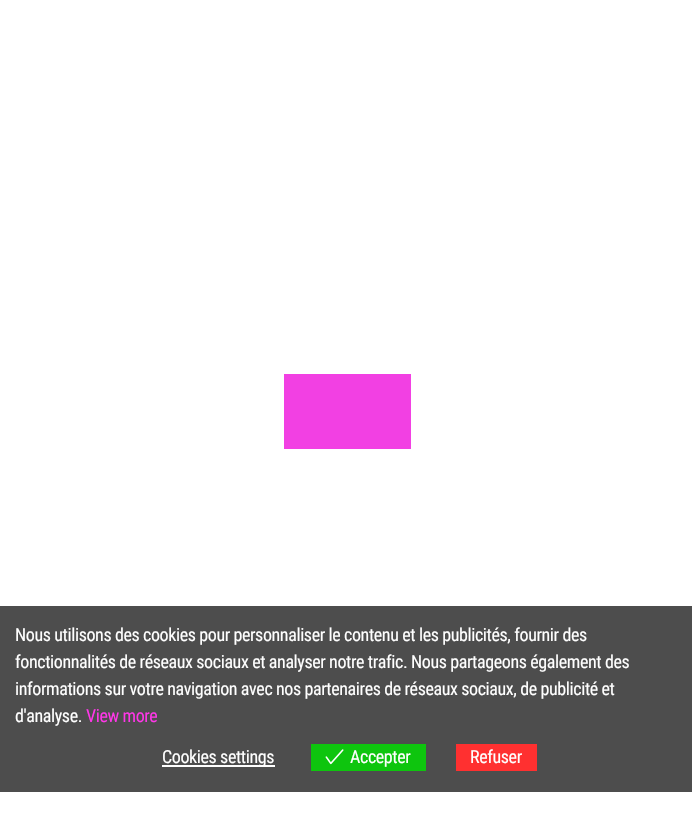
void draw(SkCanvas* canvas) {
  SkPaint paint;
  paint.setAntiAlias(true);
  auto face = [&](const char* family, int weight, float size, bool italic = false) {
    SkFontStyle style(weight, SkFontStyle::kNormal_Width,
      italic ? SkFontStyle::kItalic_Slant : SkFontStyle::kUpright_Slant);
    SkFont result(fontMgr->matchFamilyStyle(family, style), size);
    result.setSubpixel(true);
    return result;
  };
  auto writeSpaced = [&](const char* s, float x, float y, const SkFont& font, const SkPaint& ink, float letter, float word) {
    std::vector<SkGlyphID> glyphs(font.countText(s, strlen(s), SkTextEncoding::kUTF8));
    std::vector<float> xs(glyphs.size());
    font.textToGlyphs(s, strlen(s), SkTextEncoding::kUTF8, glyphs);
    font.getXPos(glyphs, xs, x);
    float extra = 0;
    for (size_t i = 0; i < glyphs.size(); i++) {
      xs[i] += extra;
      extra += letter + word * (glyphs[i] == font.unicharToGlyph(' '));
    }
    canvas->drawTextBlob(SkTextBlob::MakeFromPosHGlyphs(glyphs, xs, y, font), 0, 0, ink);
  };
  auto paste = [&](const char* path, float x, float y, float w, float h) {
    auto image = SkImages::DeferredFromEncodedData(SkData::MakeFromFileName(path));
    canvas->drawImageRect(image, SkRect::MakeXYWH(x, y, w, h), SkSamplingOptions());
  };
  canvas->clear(0xffffffff);
  {
    const struct { float x, y, w, h; SkColor color; } items[] = {
      {284, 374, 127, 75, 0xfff240e3},
      {0, 606, 692, 186, 0xff4d4d4d},
      {162, 765, 113, 2, 0xffffffff},
      {311, 744, 115, 27, 0xff0ec50e},
    };
    for (auto [x, y, w, h, color] : items) {
      paint.setColor(color);
      canvas->drawRect(SkRect::MakeXYWH(x, y, w, h), paint);
    }
  }
  paste("img/1.png", 325, 749, 19, 16);
  paint.setColor(0xffff3030);
  canvas->drawRect(SkRect::MakeXYWH(456, 744, 81, 27), paint);
  auto f0 = face("Roboto Condensed", 400, 18);
  paint.setColor(0xffffffff);
  {
    const struct { const char* s; float x, y; } items[] = {
      {"Nous utilisons des cookies pour personnaliser le contenu et les publicités, fournir des", 15, 641},
      {"fonctionnalités de réseaux sociaux et analyser notre trafic. Nous partageons également des", 15, 668},
      {"informations sur votre navigation avec nos partenaires de réseaux sociaux, de publicité et", 15, 695},
      {"d'analyse.", 15, 722},
    };
    for (auto [s, x, y] : items) {
      writeSpaced(s, x, y, f0, paint, -0.4f, 0);
    }
  }
  paint.setColor(0xffff36e8);
  writeSpaced("View more", 86, 722, f0, paint, -0.4f, 0);
  paint.setColor(0xffffffff);
  {
    const struct { const char* s; float x, y; } items[] = {
      {"Cookies settings", 162, 763},
      {"Accepter", 350, 763},
      {"Refuser", 470, 763},
    };
    for (auto [s, x, y] : items) {
      writeSpaced(s, x, y, f0, paint, -0.4f, 0);
    }
  }
}
